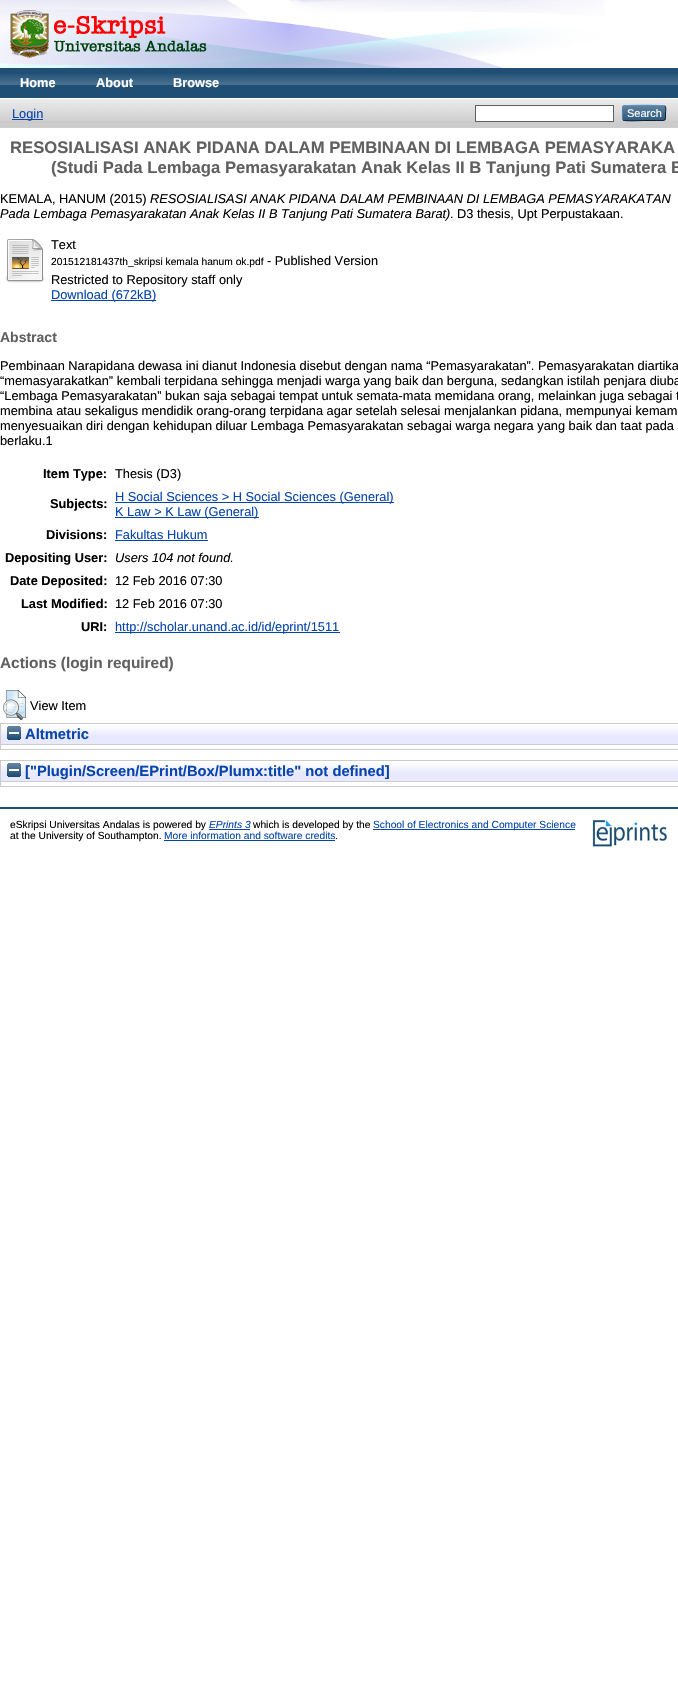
void draw(SkCanvas* canvas) {
  SkPaint paint;
  paint.setAntiAlias(true);
  auto face = [&](const char* family, int weight, float size, bool italic = false) {
    SkFontStyle style(weight, SkFontStyle::kNormal_Width,
      italic ? SkFontStyle::kItalic_Slant : SkFontStyle::kUpright_Slant);
    SkFont result(fontMgr->matchFamilyStyle(family, style), size);
    result.setSubpixel(true);
    return result;
  };
  auto paste = [&](const char* path, float x, float y, float w, float h) {
    auto image = SkImages::DeferredFromEncodedData(SkData::MakeFromFileName(path));
    canvas->drawImageRect(image, SkRect::MakeXYWH(x, y, w, h), SkSamplingOptions());
  };
  auto shape = [&](const char* data, bool evenOdd = false) {
    SkPath result = *SkParsePath::FromSVGString(data);
    if (evenOdd) result.setFillType(SkPathFillType::kEvenOdd);
    return result;
  };
  canvas->clear(0xffffffff);
  paste("img/1.png", 0, 0, 605, 68);
  paste("img/2.png", 10, 10, 197, 48);
  paint.setColor(0xff204f76);
  canvas->drawRect(SkRect::MakeXYWH(0, 68, 678, 30), paint);
  paste("img/3.png", 0, 74, 678, 11);
  paint.setColor(0xffcccccc);
  canvas->drawRect(SkRect::MakeXYWH(0, 99, 678, 29), paint);
  paste("img/4.png", 0, 99, 678, 22);
  paint.setColor(0xff0645ad);
  canvas->drawRect(SkRect::MakeXYWH(12, 119, 31, 1), paint);
  paint.setColor(0xffffffff);
  canvas->drawRect(SkRect::MakeXYWH(475.5f, 105.5f, 138, 16), paint);
  paint.setStroke(true);
  paint.setStrokeWidth(1);
  paint.setColor(0xff606060);
  canvas->drawRect(SkRect::MakeXYWH(475.5f, 105.5f, 138, 16), paint);
  paint.setStroke(false);
  paint.setColor(0xff1f4f76);
  canvas->drawRoundRect(SkRect::MakeXYWH(622, 105, 44, 16), 3, 3, paint);
  paste("img/5.png", 622, 105, 44, 16);
  paint.setStroke(true);
  paint.setColor(0xff5b97c7);
  canvas->drawPath(shape("M623 106C624.5 105 663.5 105 665 106"), paint);
  paint.setColor(0xff0d2131);
  canvas->drawPath(shape("M665 106C666.5 108 665.5 111 665.5 113C665.5 121.5 666 120.5 656.5 120.5H644C641 120.5 625 121.5 623 120"), paint);
  paint.setColor(0xff5287b3);
  canvas->drawPath(shape("M623 120C622 118.5 622.5 114.5 622.5 113C622.5 111.5 622 107.5 623 106"), paint);
  paste("img/6.png", 5, 239, 40, 44);
  paint.setStroke(false);
  {
    const struct { float x, y, w, h; SkColor color; } items[] = {
      {51, 300, 105, 1, 0xff0645ad},
      {115, 502, 279, 1, 0xff0645ad},
      {115, 517, 144, 1, 0xff0645ad},
      {115, 540, 93, 1, 0xff0645ad},
      {115, 632, 225, 1, 0xff0645ad},
    };
    for (auto [x, y, w, h, color] : items) {
      paint.setColor(color);
      canvas->drawRect(SkRect::MakeXYWH(x, y, w, h), paint);
    }
  }
  paste("img/7.png", 3, 690, 23, 30);
  paint.setColor(0xffe8e8ff);
  canvas->drawRect(SkRect::MakeXYWH(1, 725, 677, 19), paint);
  paste("img/8.png", 1, 724, 677, 11);
  paint.setStroke(true);
  paint.setColor(0xffcccccc);
  canvas->drawRect(SkRect::MakeXYWH(0.5f, 723.5f, 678, 21), paint);
  paste("img/9.png", 7, 726, 14, 14);
  paste("img/10.png", 1, 745, 677, 4);
  paint.setStroke(false);
  {
    const struct { float x, y, w, h; SkColor color; } items[] = {
      {0, 749, 678, 1, 0xffcccccc},
      {0, 745, 1, 5, 0xffcccccc},
      {1, 762, 677, 19, 0xffe8e8ff},
    };
    for (auto [x, y, w, h, color] : items) {
      paint.setColor(color);
      canvas->drawRect(SkRect::MakeXYWH(x, y, w, h), paint);
    }
  }
  paste("img/8.png", 1, 761, 677, 11);
  paint.setStroke(true);
  paint.setColor(0xffcccccc);
  canvas->drawRect(SkRect::MakeXYWH(0.5f, 760.5f, 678, 21), paint);
  paste("img/9.png", 7, 763, 14, 14);
  paste("img/10.png", 1, 782, 677, 4);
  paint.setStroke(false);
  {
    const struct { float x, y, w, h; SkColor color; } items[] = {
      {0, 786, 678, 1, 0xffcccccc},
      {0, 782, 1, 5, 0xffcccccc},
      {0, 807, 678, 2, 0xff204f76},
      {209, 829, 41, 1, 0xff0645ad},
      {373, 829, 202, 1, 0xff0645ad},
      {164, 840, 171, 1, 0xff0645ad},
    };
    for (auto [x, y, w, h, color] : items) {
      paint.setColor(color);
      canvas->drawRect(SkRect::MakeXYWH(x, y, w, h), paint);
    }
  }
  paste("img/11.png", 591, 820, 76, 28);
  auto f0 = face("Liberation Sans", 700, 12.8f);
  paint.setColor(0xffffffff);
  {
    const struct { const char* s; float x, y; } items[] = {
      {"Home", 20, 87},
      {"About", 96, 87},
      {"Browse", 173, 87},
    };
    for (auto [s, x, y] : items) {
      canvas->drawString(s, x, y, f0, paint);
    }
  }
  auto f1 = face("Liberation Sans", 400, 12.8f);
  paint.setColor(0xff0645ad);
  canvas->drawString("Login", 12, 118, f1, paint);
  auto f2 = face("Liberation Sans", 400, 11);
  paint.setColor(0xffffffff);
  canvas->drawString("Search", 627, 117, f2, paint);
  auto f3 = face("Liberation Sans", 700, 16.65f);
  paint.setColor(0xff606060);
  canvas->drawString("RESOSIALISASI ANAK PIDANA DALAM PEMBINAAN DI LEMBAGA PEMASYARAKA", 10, 153, f3, paint);
  canvas->drawString("(Studi Pada Lembaga Pemasyarakatan Anak Kelas II B Tanjung Pati Sumatera B", 51, 173, f3, paint);
  paint.setColor(0xff000000);
  canvas->drawString("KEMALA, HANUM (2015)", 0, 203, f1, paint);
  auto f4 = face("Liberation Sans", 400, 12.8f, true);
  canvas->drawString("RESOSIALISASI ANAK PIDANA DALAM PEMBINAAN DI LEMBAGA PEMASYARAKATAN", 150, 203, f4, paint);
  canvas->drawString("Pada Lembaga Pemasyarakatan Anak Kelas II B Tanjung Pati Sumatera Barat).", 0, 218, f4, paint);
  canvas->drawString("D3 thesis, Upt Perpustakaan.", 457, 218, f1, paint);
  canvas->drawString("Text", 51, 249, f1, paint);
  auto f5 = face("Liberation Sans", 400, 10.25f);
  canvas->drawString("201512181437th_skripsi kemala hanum ok.pdf", 51, 265, f5, paint);
  canvas->drawString("- Published Version", 267, 265, f1, paint);
  canvas->drawString("Restricted to Repository staff only", 51, 284, f1, paint);
  paint.setColor(0xff0645ad);
  canvas->drawString("Download (672kB)", 51, 299, f1, paint);
  auto f6 = face("Liberation Sans", 700, 14);
  paint.setColor(0xff606060);
  canvas->drawString("Abstract", 0, 342, f6, paint);
  paint.setColor(0xff000000);
  {
    const struct { const char* s; float x, y; } items[] = {
      {"Pembinaan Narapidana dewasa ini dianut Indonesia disebut dengan nama “Pemasyarakatan”. Pemasyarakatan diartika", 0, 370},
      {"“memasyarakatkan” kembali terpidana sehingga menjadi warga yang baik dan berguna, sedangkan istilah penjara diuba", 0, 385},
      {"“Lembaga Pemasyarakatan” bukan saja sebagai tempat untuk semata-mata memidana orang, melainkan juga sebagai t", 0, 400},
      {"membina atau sekaligus mendidik orang-orang terpidana agar setelah selesai menjalankan pidana, mempunyai kemam", 0, 415},
      {"menyesuaikan diri dengan kehidupan diluar Lembaga Pemasyarakatan sebagai warga negara yang baik dan taat pada", 0, 430},
      {"berlaku.1", 0, 445},
    };
    for (auto [s, x, y] : items) {
      canvas->drawString(s, x, y, f1, paint);
    }
  }
  canvas->drawString("Item Type:", 43, 478, f0, paint);
  canvas->drawString("Thesis (D3)", 115, 478, f1, paint);
  canvas->drawString("Subjects:", 50, 508, f0, paint);
  paint.setColor(0xff0645ad);
  canvas->drawString("H Social Sciences > H Social Sciences (General)", 115, 501, f1, paint);
  canvas->drawString("K Law > K Law (General)", 115, 516, f1, paint);
  paint.setColor(0xff000000);
  canvas->drawString("Divisions:", 46, 539, f0, paint);
  paint.setColor(0xff0645ad);
  canvas->drawString("Fakultas Hukum", 115, 539, f1, paint);
  paint.setColor(0xff000000);
  canvas->drawString("Depositing User:", 5, 562, f0, paint);
  canvas->drawString("Users 104 not found.", 115, 562, f4, paint);
  canvas->drawString("Date Deposited:", 10, 585, f0, paint);
  canvas->drawString("12 Feb 2016 07:30", 115, 585, f1, paint);
  canvas->drawString("Last Modified:", 21, 608, f0, paint);
  canvas->drawString("12 Feb 2016 07:30", 115, 608, f1, paint);
  canvas->drawString("URI:", 81, 631, f0, paint);
  paint.setColor(0xff0645ad);
  canvas->drawString("http://scholar.unand.ac.id/id/eprint/1511", 115, 631, f1, paint);
  auto f7 = face("Liberation Sans", 700, 15.4f);
  paint.setColor(0xff606060);
  canvas->drawString("Actions (login required)", 0, 668, f7, paint);
  paint.setColor(0xff000000);
  canvas->drawString("View Item", 30, 710, f1, paint);
  auto f8 = face("Liberation Sans", 700, 14.75f);
  paint.setColor(0xff0645ad);
  canvas->drawString("Altmetric", 25, 739, f8, paint);
  canvas->drawString("[\"Plugin/Screen/EPrint/Box/Plumx:title\" not defined]", 25, 776, f8, paint);
  paint.setColor(0xff000000);
  canvas->drawString("eSkripsi Universitas Andalas is powered by", 10, 828, f5, paint);
  auto f9 = face("Liberation Sans", 400, 10.25f, true);
  paint.setColor(0xff0645ad);
  canvas->drawString("EPrints 3", 209, 828, f9, paint);
  paint.setColor(0xff000000);
  canvas->drawString("which is developed by the", 253, 828, f5, paint);
  paint.setColor(0xff0645ad);
  canvas->drawString("School of Electronics and Computer Science", 373, 828, f5, paint);
  paint.setColor(0xff000000);
  canvas->drawString("at the University of Southampton.", 10, 839, f5, paint);
  paint.setColor(0xff0645ad);
  canvas->drawString("More information and software credits", 164, 839, f5, paint);
  paint.setColor(0xff000000);
  canvas->drawString(".", 335, 839, f5, paint);
}
